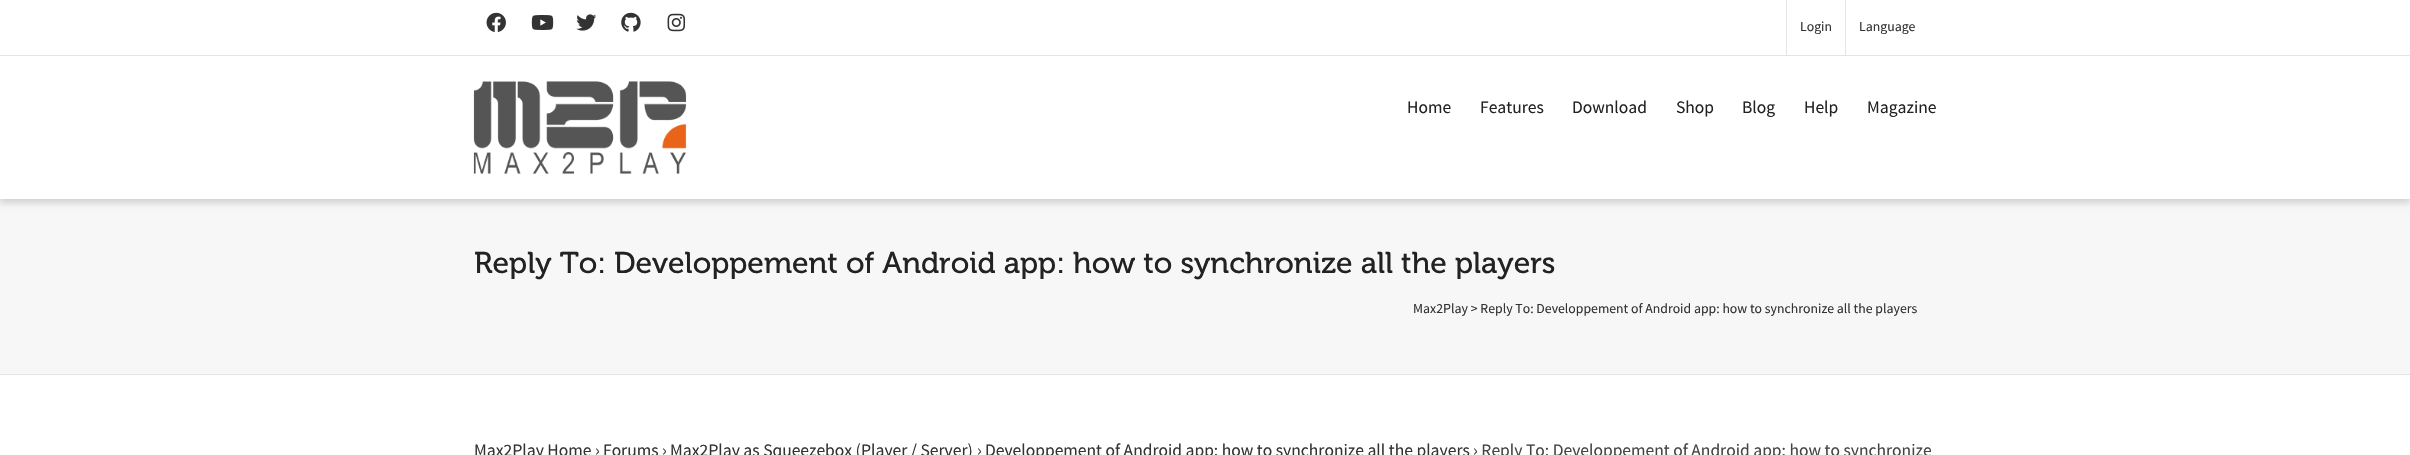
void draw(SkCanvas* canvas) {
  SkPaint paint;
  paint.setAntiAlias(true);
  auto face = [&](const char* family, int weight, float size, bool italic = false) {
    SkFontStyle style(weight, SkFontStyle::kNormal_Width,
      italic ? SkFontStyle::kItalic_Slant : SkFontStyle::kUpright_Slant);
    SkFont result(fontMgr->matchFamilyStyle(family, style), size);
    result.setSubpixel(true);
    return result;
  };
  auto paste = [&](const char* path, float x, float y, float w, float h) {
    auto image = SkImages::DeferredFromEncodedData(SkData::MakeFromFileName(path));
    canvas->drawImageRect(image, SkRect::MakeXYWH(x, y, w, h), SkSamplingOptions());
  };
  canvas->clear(0xffffffff);
  paint.setColor(0xfff7f7f7);
  canvas->drawRect(SkRect::MakeXYWH(0, 199, 2410, 175), paint);
  paint.setColor(0x1a000000);
  paint.setMaskFilter(SkMaskFilter::MakeBlur(kNormal_SkBlurStyle, 3));
  canvas->drawRect(SkRect::MakeXYWH(0, 4, 2410, 199), paint);
  paint.setMaskFilter(nullptr);
  paint.setColor(0x0d000000);
  paint.setMaskFilter(SkMaskFilter::MakeBlur(kNormal_SkBlurStyle, 3));
  canvas->drawRect(SkRect::MakeXYWH(0, 4, 2410, 199), paint);
  paint.setMaskFilter(nullptr);
  paint.setColor(0xffffffff);
  canvas->drawRect(SkRect::MakeXYWH(0, 0, 2410, 199), paint);
  paint.setColor(0xffe4e4e4);
  canvas->drawRect(SkRect::MakeXYWH(0, 55, 2410, 1), paint);
  paste("img/1.png", 486, 12, 20, 20);
  paste("img/2.png", 531, 15, 23, 15);
  paste("img/3.png", 576, 14, 21, 17);
  paste("img/4.png", 621, 12, 20, 20);
  paste("img/5.png", 667, 13, 19, 19);
  canvas->drawRect(SkRect::MakeXYWH(1786, 0, 1, 55), paint);
  canvas->drawRect(SkRect::MakeXYWH(1845, 0, 1, 55), paint);
  paste("img/6.png", 473, 81, 214, 93);
  canvas->drawRect(SkRect::MakeXYWH(0, 374, 2410, 1), paint);
  auto f0 = face("Source Sans Pro", 400, 13.75f);
  paint.setColor(0xff333333);
  canvas->drawString("Login", 1800, 31, f0, paint);
  canvas->drawString("Language", 1859, 31, f0, paint);
  auto f1 = face("Source Sans Pro", 400, 17.5f);
  paint.setColor(0xff222222);
  {
    const struct { const char* s; float x, y; } items[] = {
      {"Home", 1407, 113},
      {"Features", 1480, 113},
      {"Download", 1572, 113},
      {"Shop", 1676, 113},
      {"Blog", 1742, 113},
      {"Help", 1804, 113},
      {"Magazine", 1867, 113},
    };
    for (auto [s, x, y] : items) {
      canvas->drawString(s, x, y, f1, paint);
    }
  }
  auto f2 = face("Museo", 400, 30);
  canvas->drawString("Reply To: Developpement of Android app: how to synchronize all the players", 474, 273, f2, paint);
  paint.setColor(0xff333333);
  canvas->drawString("Max2Play > Reply To: Developpement of Android app: how to synchronize all the players", 1413, 313, f0, paint);
  canvas->drawString("Max2Play Home", 474, 456, f1, paint);
  paint.setColor(0xff444444);
  canvas->drawString("›", 595, 456, f1, paint);
  paint.setColor(0xff333333);
  canvas->drawString("Forums", 603, 456, f1, paint);
  paint.setColor(0xff444444);
  canvas->drawString("›", 662, 456, f1, paint);
  paint.setColor(0xff333333);
  canvas->drawString("Max2Play as Squeezebox (Player / Server)", 670, 456, f1, paint);
  paint.setColor(0xff444444);
  canvas->drawString("›", 977, 456, f1, paint);
  paint.setColor(0xff333333);
  canvas->drawString("Developpement of Android app: how to synchronize all the players", 985, 456, f1, paint);
  paint.setColor(0xff444444);
  canvas->drawString("› Reply To: Developpement of Android app: how to synchronize", 1473, 456, f1, paint);
}
